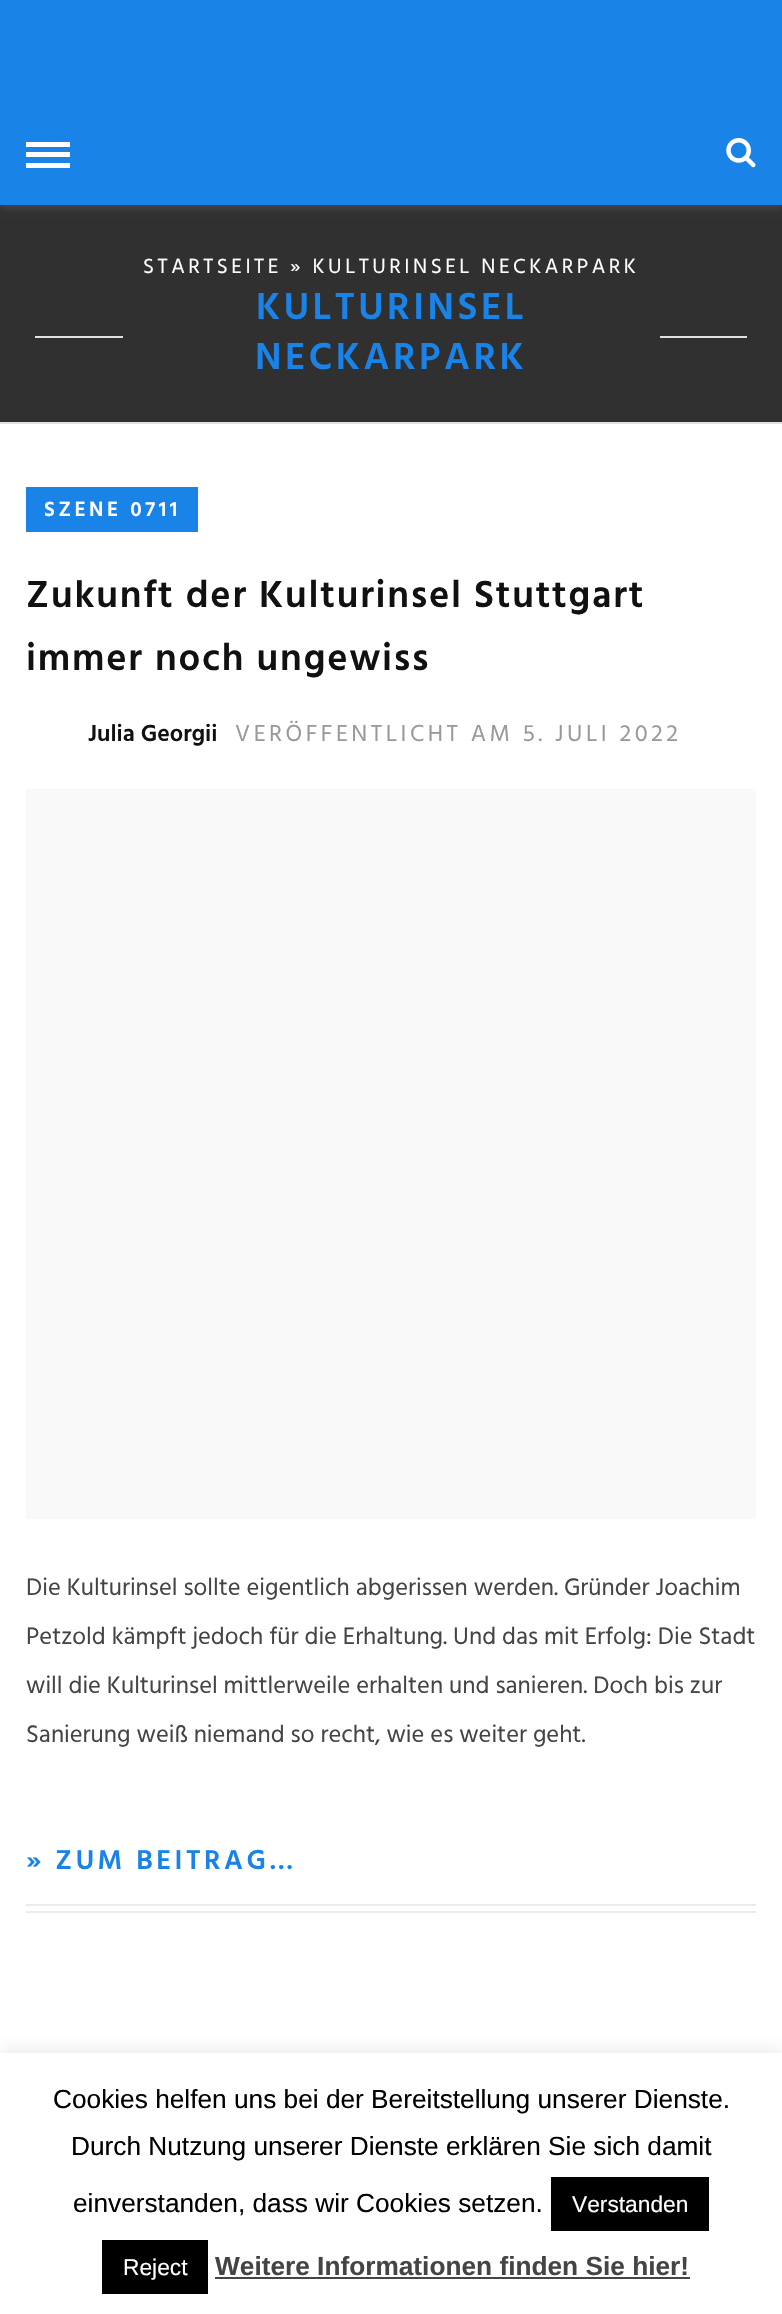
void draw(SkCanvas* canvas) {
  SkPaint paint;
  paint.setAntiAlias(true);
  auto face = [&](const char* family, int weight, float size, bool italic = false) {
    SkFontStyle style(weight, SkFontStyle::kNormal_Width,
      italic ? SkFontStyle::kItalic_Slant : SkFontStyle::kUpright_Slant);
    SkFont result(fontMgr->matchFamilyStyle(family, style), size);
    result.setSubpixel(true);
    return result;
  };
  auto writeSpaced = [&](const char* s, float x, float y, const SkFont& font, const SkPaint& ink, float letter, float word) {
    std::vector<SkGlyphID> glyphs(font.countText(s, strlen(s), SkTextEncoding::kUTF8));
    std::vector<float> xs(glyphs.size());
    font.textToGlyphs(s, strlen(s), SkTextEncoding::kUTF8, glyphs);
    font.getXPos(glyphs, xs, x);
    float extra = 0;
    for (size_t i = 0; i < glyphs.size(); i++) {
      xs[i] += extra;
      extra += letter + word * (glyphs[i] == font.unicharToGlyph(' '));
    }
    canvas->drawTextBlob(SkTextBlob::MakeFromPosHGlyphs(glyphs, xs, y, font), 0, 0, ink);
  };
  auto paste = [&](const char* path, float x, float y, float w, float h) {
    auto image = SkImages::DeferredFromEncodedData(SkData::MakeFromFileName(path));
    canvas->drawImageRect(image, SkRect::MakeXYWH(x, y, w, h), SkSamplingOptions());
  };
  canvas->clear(0xffffffff);
  paint.setColor(0xff303030);
  canvas->drawRect(SkRect::MakeXYWH(0, 205, 782, 217), paint);
  paint.setColor(0x33bebebe);
  paint.setMaskFilter(SkMaskFilter::MakeBlur(kNormal_SkBlurStyle, 4.5f));
  canvas->drawRect(SkRect::MakeXYWH(0, 2, 782, 205), paint);
  paint.setMaskFilter(nullptr);
  {
    const struct { float x, y, w, h; SkColor color; } items[] = {
      {0, 0, 782, 205, 0xff1a83e8},
      {26, 142, 44, 5, 0xffffffff},
      {26, 152, 44, 5, 0xffffffff},
      {26, 163, 44, 5, 0xffffffff},
    };
    for (auto [x, y, w, h, color] : items) {
      paint.setColor(color);
      canvas->drawRect(SkRect::MakeXYWH(x, y, w, h), paint);
    }
  }
  paste("img/1.png", 726, 138, 30, 30);
  {
    const struct { float x, y, w, h; SkColor color; } items[] = {
      {0, 422, 782, 2, 0xffe1e1e1},
      {35, 336, 712, 2, 0xffe1e1e1},
      {123, 336, 537, 2, 0xff303030},
      {26, 487, 172, 45, 0xff1a83e8},
      {26, 789, 730, 730, 0xfff9f9f9},
      {26, 1904, 730, 2, 0xffebebeb},
      {26, 1911, 730, 2, 0xffebebeb},
    };
    for (auto [x, y, w, h, color] : items) {
      paint.setColor(color);
      canvas->drawRect(SkRect::MakeXYWH(x, y, w, h), paint);
    }
  }
  paint.setColor(0x4dacabab);
  paint.setMaskFilter(SkMaskFilter::MakeBlur(kNormal_SkBlurStyle, 9));
  canvas->drawRect(SkRect::MakeXYWH(0, 2051, 782, 263), paint);
  paint.setMaskFilter(nullptr);
  {
    const struct { float x, y, w, h; SkColor color; } items[] = {
      {0, 2053, 782, 261, 0xffffffff},
      {551, 2177, 158, 54, 0xff000000},
      {102, 2240, 106, 54, 0xff000000},
      {215, 2277, 475, 2, 0xff444444},
    };
    for (auto [x, y, w, h, color] : items) {
      paint.setColor(color);
      canvas->drawRect(SkRect::MakeXYWH(x, y, w, h), paint);
    }
  }
  auto f0 = face("Hind", 400, 21);
  paint.setColor(0xffffffff);
  writeSpaced("STARTSEITE » KULTURINSEL NECKARPARK", 143, 273, f0, paint, 3.5f, 0);
  auto f1 = face("Hind", 600, 38.5f);
  paint.setColor(0xff1a83e8);
  writeSpaced("KULTURINSEL", 256, 319, f1, paint, 3.5f, 0);
  writeSpaced("NECKARPARK", 255, 369, f1, paint, 3.5f, 0);
  auto f2 = face("Hind", 600, 21);
  paint.setColor(0xffffffff);
  writeSpaced("SZENE 0711", 44, 516, f2, paint, 3.5f, 0);
  paint.setColor(0xff111111);
  writeSpaced("Zukunft der Kulturinsel Stuttgart", 26, 607, f1, paint, 1.75f, 0);
  writeSpaced("immer noch ungewiss", 26, 670, f1, paint, 1.75f, 0);
  auto f3 = face("Hind", 600, 23.75f);
  canvas->drawString("Julia Georgii", 88, 741, f3, paint);
  auto f4 = face("Hind", 400, 23.75f);
  paint.setColor(0xff999999);
  writeSpaced("VERÖFFENTLICHT AM 5. JULI 2022", 235, 741, f4, paint, 3.5f, 0);
  auto f5 = face("Hind", 400, 24.5f);
  paint.setColor(0xff444444);
  {
    const struct { const char* s; float x, y; } items[] = {
      {"Die Kulturinsel sollte eigentlich abgerissen werden. Gründer Joachim", 26, 1595},
      {"Petzold kämpft jedoch für die Erhaltung. Und das mit Erfolg: Die Stadt", 26, 1644},
      {"will die Kulturinsel mittlerweile erhalten und sanieren. Doch bis zur", 26, 1693},
      {"Sanierung weiß niemand so recht, wie es weiter geht.", 26, 1742},
    };
    for (auto [s, x, y] : items) {
      canvas->drawString(s, x, y, f5, paint);
    }
  }
  auto f6 = face("Hind", 600, 28);
  paint.setColor(0xff1a83e8);
  writeSpaced("» ZUM BEITRAG…", 26, 1869, f6, paint, 3.5f, 0);
  auto f7 = face("Liberation Sans", 400, 26.25f);
  paint.setColor(0xff000000);
  {
    const struct { const char* s; float x, y; } items[] = {
      {"Cookies helfen uns bei der Bereitstellung unserer Dienste.", 53, 2108},
      {"Durch Nutzung unserer Dienste erklären Sie sich damit", 71, 2155},
      {"einverstanden, dass wir Cookies setzen.", 73, 2212},
    };
    for (auto [s, x, y] : items) {
      canvas->drawString(s, x, y, f7, paint);
    }
  }
  auto f8 = face("Liberation Sans", 400, 22.75f);
  paint.setColor(0xffffffff);
  canvas->drawString("Verstanden", 572, 2212, f8, paint);
  canvas->drawString("Reject", 123, 2275, f8, paint);
  auto f9 = face("Liberation Sans", 700, 26.25f);
  paint.setColor(0xff444444);
  canvas->drawString("Weitere Informationen finden Sie hier!", 215, 2275, f9, paint);
}
